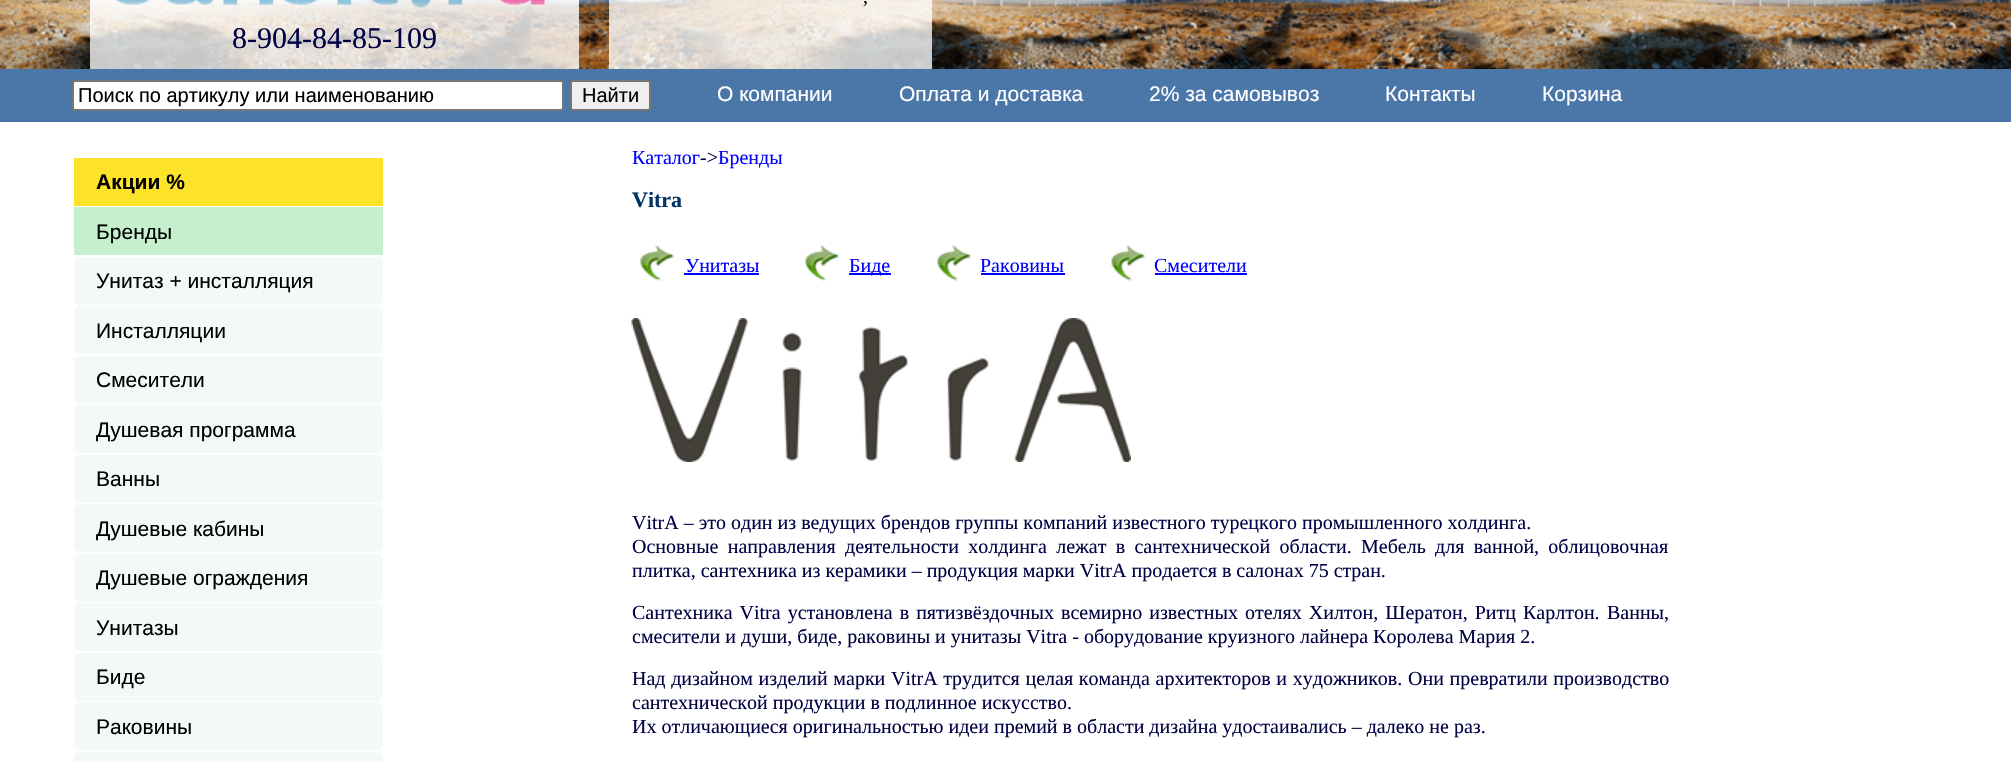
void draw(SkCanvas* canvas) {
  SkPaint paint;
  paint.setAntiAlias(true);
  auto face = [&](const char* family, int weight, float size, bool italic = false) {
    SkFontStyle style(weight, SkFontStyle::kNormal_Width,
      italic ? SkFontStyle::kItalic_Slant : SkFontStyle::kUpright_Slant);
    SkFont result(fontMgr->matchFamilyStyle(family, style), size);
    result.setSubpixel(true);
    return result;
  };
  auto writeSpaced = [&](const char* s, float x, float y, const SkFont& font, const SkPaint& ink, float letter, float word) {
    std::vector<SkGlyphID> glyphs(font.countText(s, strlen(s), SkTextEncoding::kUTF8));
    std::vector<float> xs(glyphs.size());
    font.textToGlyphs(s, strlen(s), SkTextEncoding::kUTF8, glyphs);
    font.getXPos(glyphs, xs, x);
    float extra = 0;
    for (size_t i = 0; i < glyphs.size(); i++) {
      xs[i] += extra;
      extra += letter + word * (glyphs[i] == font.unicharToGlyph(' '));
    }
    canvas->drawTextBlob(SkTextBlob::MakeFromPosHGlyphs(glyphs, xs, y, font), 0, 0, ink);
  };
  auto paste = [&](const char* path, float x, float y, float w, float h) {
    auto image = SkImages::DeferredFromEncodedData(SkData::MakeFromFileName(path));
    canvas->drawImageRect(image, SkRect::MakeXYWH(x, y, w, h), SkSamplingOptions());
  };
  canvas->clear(0xffffffff);
  paste("img/1.png", 0, 0, 2011, 69);
  paint.setColor(0xc4ffffff);
  canvas->drawRect(SkRect::MakeXYWH(609, 0, 323, 69), paint);
  canvas->drawRect(SkRect::MakeXYWH(90, 0, 489, 21), paint);
  paste("img/2.png", 90, 0, 489, 21);
  canvas->drawRect(SkRect::MakeXYWH(90, 21, 489, 48), paint);
  paint.setColor(0xff4a76a8);
  canvas->drawRect(SkRect::MakeXYWH(0, 69, 2011, 53), paint);
  paint.setColor(0xffffffff);
  canvas->drawRoundRect(SkRect::MakeXYWH(73, 81, 490, 29), 2, 2, paint);
  paint.setStroke(true);
  paint.setStrokeWidth(2);
  paint.setColor(0xff767676);
  canvas->drawRoundRect(SkRect::MakeXYWH(73, 81, 490, 29), 2, 2, paint);
  paint.setStroke(false);
  paint.setColor(0xffefefef);
  canvas->drawRoundRect(SkRect::MakeXYWH(571, 81, 79, 29), 2, 2, paint);
  paint.setStroke(true);
  paint.setColor(0xff767676);
  canvas->drawRoundRect(SkRect::MakeXYWH(571, 81, 79, 29), 2, 2, paint);
  paint.setStroke(false);
  paint.setColor(0xfffce327);
  canvas->drawRect(SkRect::MakeXYWH(74, 158, 309, 48), paint);
  paint.setColor(0xffc6efce);
  canvas->drawRect(SkRect::MakeXYWH(74, 207, 309, 48), paint);
  paint.setColor(0xfff3f9f5);
  canvas->drawRoundRect(SkRect::MakeXYWH(74, 257, 309, 48), 6, 6, paint);
  canvas->drawRoundRect(SkRect::MakeXYWH(74, 306, 309, 48), 6, 6, paint);
  canvas->drawRoundRect(SkRect::MakeXYWH(74, 356, 309, 48), 6, 6, paint);
  canvas->drawRoundRect(SkRect::MakeXYWH(74, 405, 309, 48), 6, 6, paint);
  canvas->drawRoundRect(SkRect::MakeXYWH(74, 455, 309, 48), 6, 6, paint);
  canvas->drawRoundRect(SkRect::MakeXYWH(74, 504, 309, 48), 6, 6, paint);
  canvas->drawRoundRect(SkRect::MakeXYWH(74, 554, 309, 48), 6, 6, paint);
  canvas->drawRoundRect(SkRect::MakeXYWH(74, 603, 309, 48), 6, 6, paint);
  canvas->drawRoundRect(SkRect::MakeXYWH(74, 653, 309, 48), 6, 6, paint);
  canvas->drawRoundRect(SkRect::MakeXYWH(74, 702, 309, 48), 6, 6, paint);
  canvas->drawRoundRect(SkRect::MakeXYWH(74, 752, 309, 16), 6, 6, paint);
  paste("img/3.png", 640, 244, 34, 37);
  paint.setColor(0xff0000ff);
  canvas->drawRect(SkRect::MakeXYWH(684, 273, 75, 2), paint);
  paste("img/3.png", 805, 244, 34, 37);
  canvas->drawRect(SkRect::MakeXYWH(849, 273, 42, 2), paint);
  paste("img/3.png", 937, 244, 34, 37);
  canvas->drawRect(SkRect::MakeXYWH(981, 273, 84, 2), paint);
  paste("img/4.png", 1111, 244, 34, 37);
  canvas->drawRect(SkRect::MakeXYWH(1155, 273, 92, 2), paint);
  paste("img/5.png", 631, 318, 500, 144);
  auto f0 = face("Liberation Serif", 400, 20);
  paint.setColor(0xff000000);
  canvas->drawString(",", 863, 3, f0, paint);
  auto f1 = face("Liberation Serif", 400, 30);
  paint.setColor(0xff000044);
  canvas->drawString("8-904-84-85-109", 232, 48, f1, paint);
  auto f2 = face("Liberation Sans", 400, 20);
  paint.setColor(0xff000000);
  canvas->drawString("Поиск по артикулу или наименованию", 78, 102, f2, paint);
  canvas->drawString("Найти", 582, 102, f2, paint);
  auto f3 = face("Liberation Sans", 400, 21);
  paint.setColor(0xffffffff);
  {
    const struct { const char* s; float x, y; } items[] = {
      {"О компании", 717, 101},
      {"Оплата и доставка", 899, 101},
      {"2% за самовывоз", 1149, 101},
      {"Контакты", 1385, 101},
      {"Корзина", 1542, 101},
    };
    for (auto [s, x, y] : items) {
      canvas->drawString(s, x, y, f3, paint);
    }
  }
  auto f4 = face("Liberation Sans", 700, 21);
  paint.setColor(0xff000000);
  canvas->drawString("Акции %", 96, 189, f4, paint);
  {
    const struct { const char* s; float x, y; } items[] = {
      {"Бренды", 96, 239},
      {"Унитаз + инсталляция", 96, 288},
      {"Инсталляции", 96, 338},
      {"Смесители", 96, 387},
      {"Душевая программа", 96, 437},
      {"Ванны", 96, 486},
      {"Душевые кабины", 96, 536},
      {"Душевые ограждения", 96, 585},
      {"Унитазы", 96, 635},
      {"Биде", 96, 684},
      {"Раковины", 96, 734},
    };
    for (auto [s, x, y] : items) {
      canvas->drawString(s, x, y, f3, paint);
    }
  }
  paint.setColor(0xff0000ff);
  canvas->drawString("Каталог", 632, 164, f0, paint);
  paint.setColor(0xff000044);
  canvas->drawString("->", 700, 164, f0, paint);
  paint.setColor(0xff0000ff);
  canvas->drawString("Бренды", 718, 164, f0, paint);
  auto f5 = face("Liberation Serif", 700, 22);
  paint.setColor(0xff003366);
  canvas->drawString("Vitra", 632, 207, f5, paint);
  paint.setColor(0xff0000ff);
  {
    const struct { const char* s; float x, y; } items[] = {
      {"Унитазы", 685, 272},
      {"Биде", 849, 272},
      {"Раковины", 980, 272},
      {"Смесители", 1154, 272},
    };
    for (auto [s, x, y] : items) {
      canvas->drawString(s, x, y, f0, paint);
    }
  }
  paint.setColor(0xff000044);
  canvas->drawString("VitrA – это один из ведущих брендов группы компаний известного турецкого промышленного холдинга.", 632, 529, f0, paint);
  writeSpaced("Основные направления деятельности холдинга лежат в сантехнической области. Мебель для ванной, облицовочная", 632, 553, f0, paint, 0, 4.25f);
  canvas->drawString("плитка, сантехника из керамики – продукция марки VitrA продается в салонах 75 стран.", 632, 577, f0, paint);
  writeSpaced("Сантехника Vitra установлена в пятизвёздочных всемирно известных отелях Хилтон, Шератон, Ритц Карлтон.", 632, 619, f0, paint, 0, 2);
  canvas->drawString("Ванны,", 1607, 619, f0, paint);
  canvas->drawString("смесители и души, биде, раковины и унитазы Vitra - оборудование круизного лайнера Королева Мария 2.", 632, 643, f0, paint);
  writeSpaced("Над дизайном изделий марки VitrA трудится целая команда архитекторов и художников. Они превратили производство", 632, 685, f0, paint, 0, 0.7f);
  canvas->drawString("сантехнической продукции в подлинное искусство.", 632, 709, f0, paint);
  canvas->drawString("Их отличающиеся оригинальностью идеи премий в области дизайна удостаивались – далеко не раз.", 632, 733, f0, paint);
}
